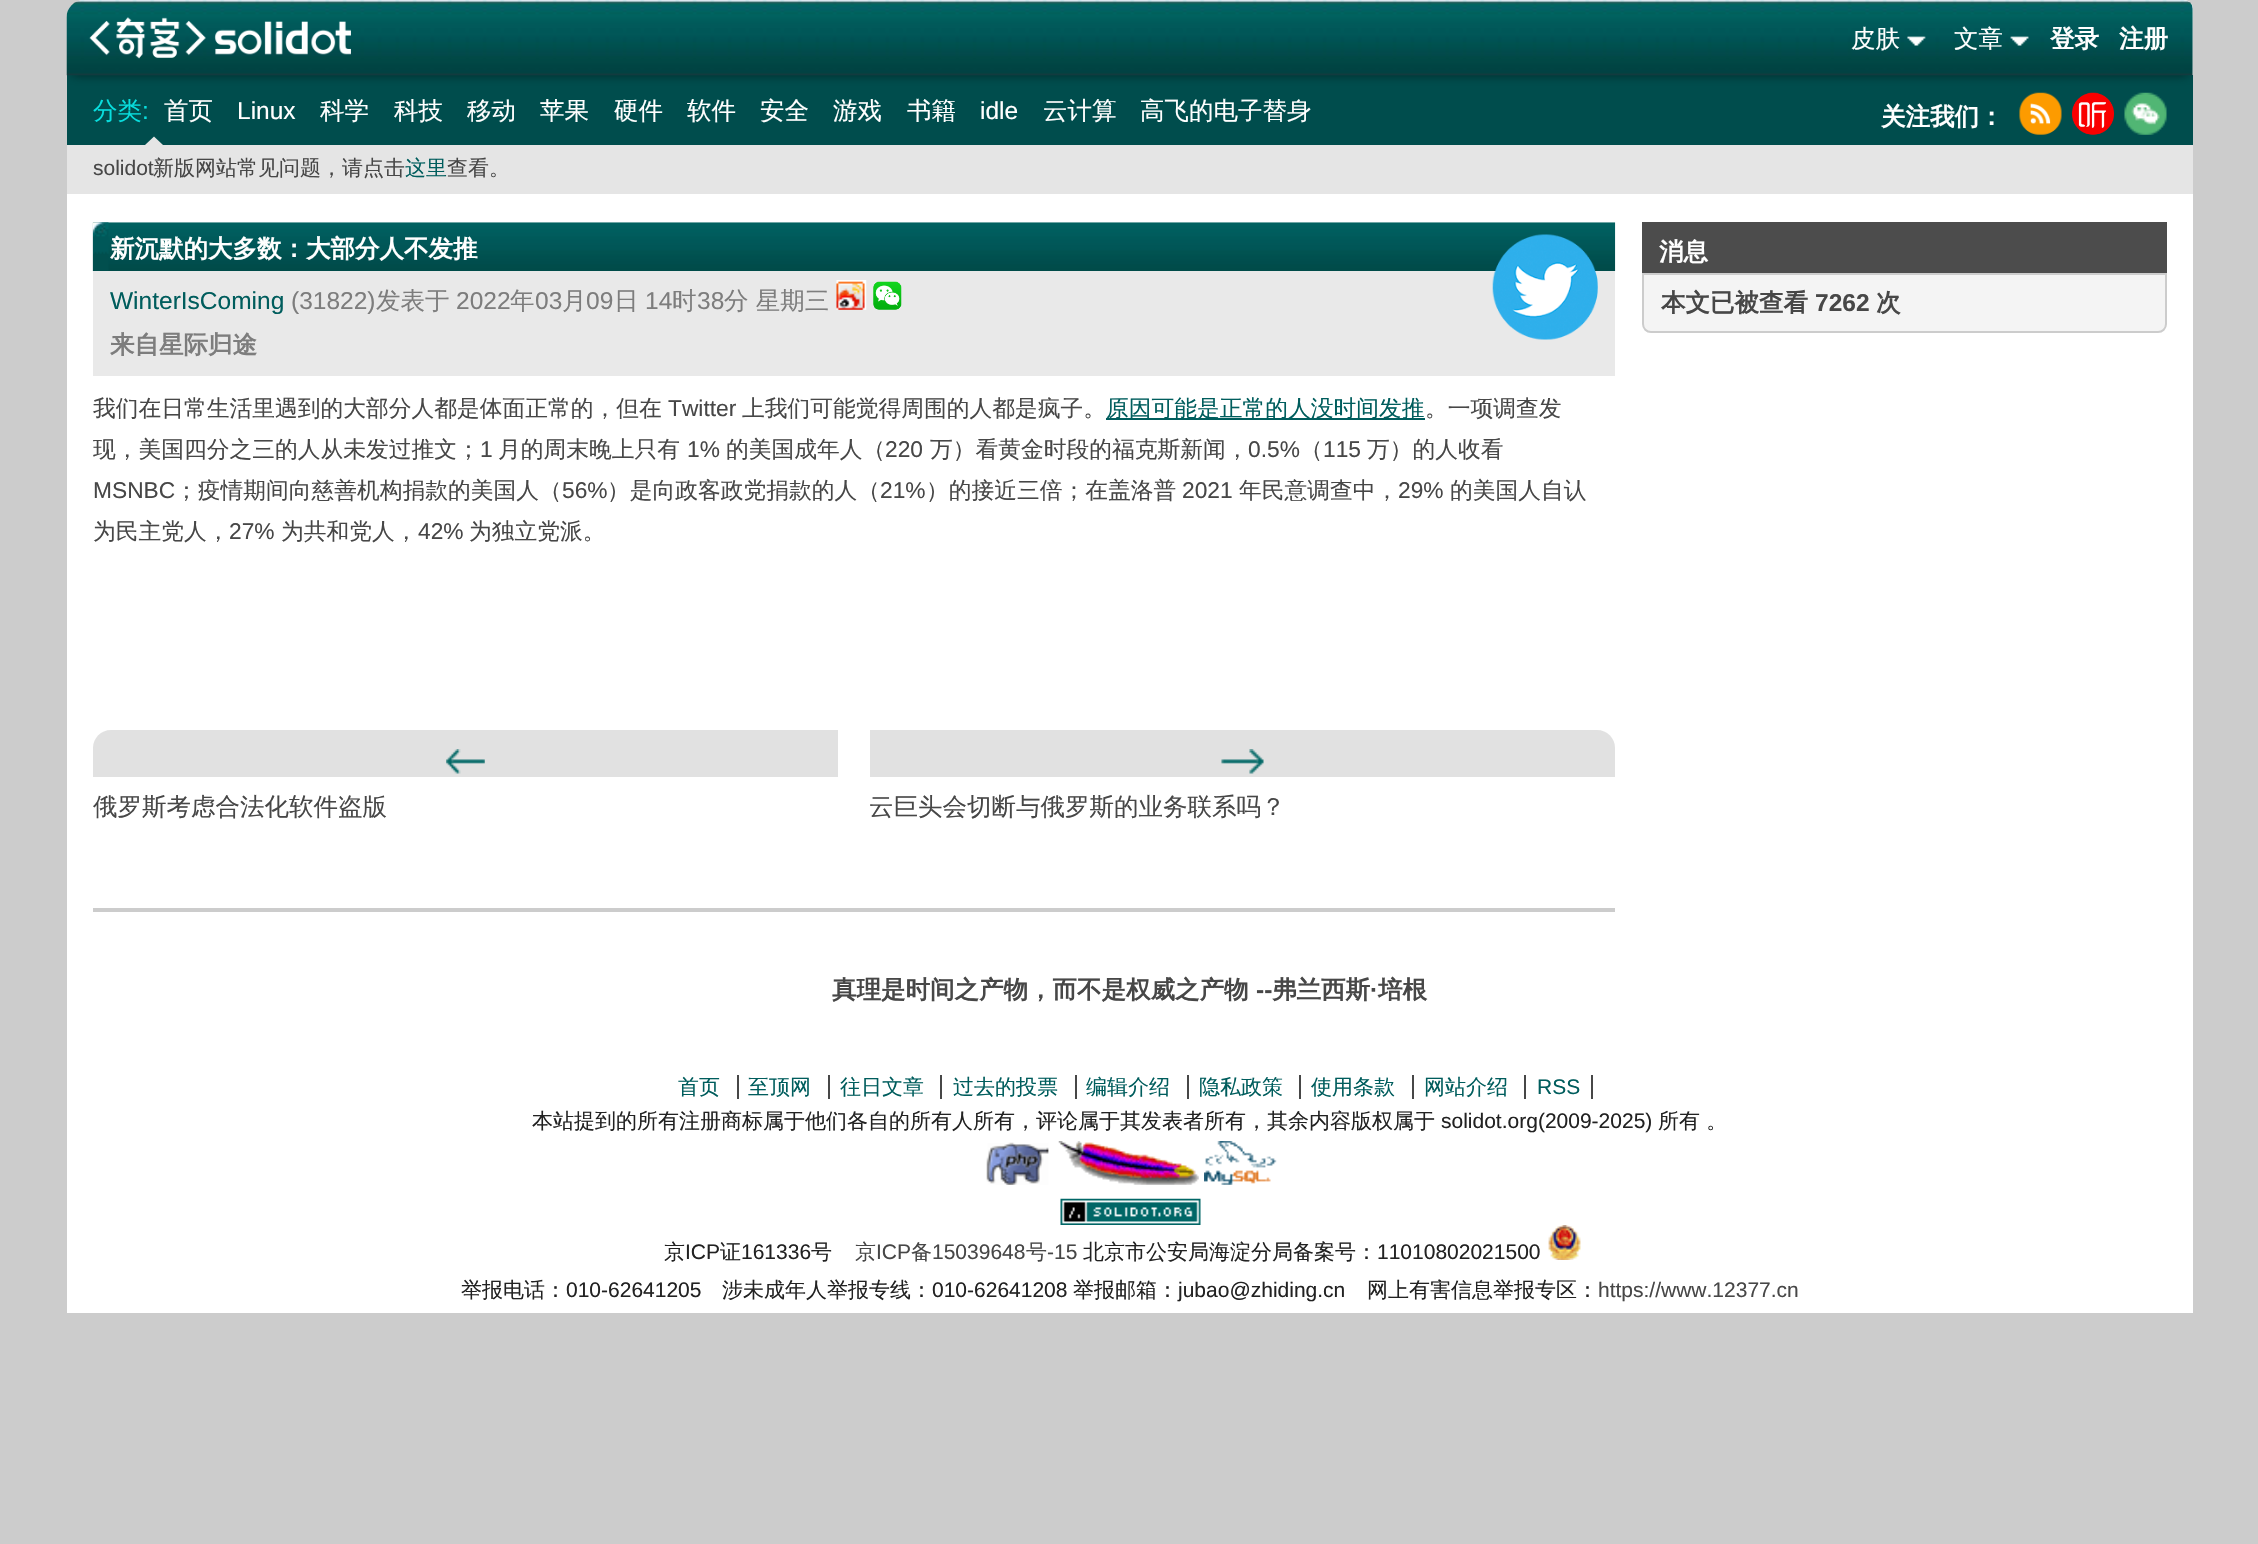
void draw(SkCanvas* canvas) {
  SkPaint paint;
  paint.setAntiAlias(true);
  auto face = [&](const char* family, int weight, float size, bool italic = false) {
    SkFontStyle style(weight, SkFontStyle::kNormal_Width,
      italic ? SkFontStyle::kItalic_Slant : SkFontStyle::kUpright_Slant);
    SkFont result(fontMgr->matchFamilyStyle(family, style), size);
    result.setSubpixel(true);
    return result;
  };
  auto paste = [&](const char* path, float x, float y, float w, float h) {
    auto image = SkImages::DeferredFromEncodedData(SkData::MakeFromFileName(path));
    canvas->drawImageRect(image, SkRect::MakeXYWH(x, y, w, h), SkSamplingOptions());
  };
  auto shape = [&](const char* data, bool evenOdd = false) {
    SkPath result = *SkParsePath::FromSVGString(data);
    if (evenOdd) result.setFillType(SkPathFillType::kEvenOdd);
    return result;
  };
  canvas->clear(0xffcccccc);
  paint.setColor(0xffffffff);
  canvas->drawPath(shape("M85 0H2184C2189 0 2193 4 2193 9V1313H67V18C67 8 75 0 85 0Z"), paint);
  paint.setColor(0xff004d4d);
  canvas->drawRect(SkRect::MakeXYWH(67, 75, 2126, 70), paint);
  canvas->save();
  canvas->clipPath(shape("M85 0H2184C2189 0 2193 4 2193 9V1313H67V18C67 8 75 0 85 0Z"), true);
  paint.setColor(0x80000000);
  paint.setMaskFilter(SkMaskFilter::MakeBlur(kNormal_SkBlurStyle, 5));
  canvas->drawRect(SkRect::MakeXYWH(72, 11, 2116, 64), paint);
  paint.setMaskFilter(nullptr);
  canvas->restore();
  paste("img/2.png", 66, 0, 2127, 76);
  paste("img/1.png", 89, 17, 262, 42);
  paste("img/3.png", 1907, 36, 19, 10);
  paste("img/4.png", 2010, 36, 19, 10);
  paste("img/5.png", 2019, 92, 43, 43);
  paste("img/6.png", 2072, 92, 42, 43);
  paste("img/7.png", 2124, 92, 43, 43);
  paint.setColor(0xffe5e5e5);
  canvas->drawRect(SkRect::MakeXYWH(67, 145, 2126, 49), paint);
  canvas->drawPath(shape("M163 145H145L154 136.5Z"), paint);
  paint.setColor(0xffcccccc);
  canvas->drawRect(SkRect::MakeXYWH(93, 908, 1522, 4), paint);
  paste("img/9.png", 92, 222, 1524, 49);
  paste("img/8.png", 92, 222, 17, 49);
  paint.setColor(0xffe9e9e9);
  canvas->drawRect(SkRect::MakeXYWH(93, 271, 1522, 105), paint);
  paste("img/10.png", 836, 280, 31, 30);
  paste("img/11.png", 873, 281, 29, 29);
  paste("img/12.png", 1492, 234, 106, 106);
  paint.setColor(0xff005d5d);
  canvas->drawRect(SkRect::MakeXYWH(1106, 418, 319, 2), paint);
  paint.setColor(0xffe1e1e1);
  canvas->drawPath(shape("M111 730H838V777H93V748C93 738 101 730 111 730Z"), paint);
  paste("img/13.png", 446, 749, 39, 25);
  canvas->drawPath(shape("M870 730H1597C1607 730 1615 738 1615 748V777H870Z"), paint);
  paste("img/14.png", 1221, 749, 43, 25);
  paint.setColor(0xff4c4c4c);
  canvas->drawRect(SkRect::MakeXYWH(1642, 222, 525, 51), paint);
  paint.setColor(0xfff4f4f4);
  canvas->drawPath(shape("M1643 274H2166V324C2166 328.5 2162.5 332 2158 332H1651C1646.5 332 1643 328.5 1643 324Z"), paint);
  paint.setStroke(true);
  paint.setStrokeWidth(2);
  paint.setColor(0xffcccccc);
  canvas->drawPath(shape("M1643 274H2166V324C2166 328.5 2162.5 332 2158 332H1651C1646.5 332 1643 328.5 1643 324Z"), paint);
  paint.setStroke(false);
  {
    const struct { float x, y, w, h; SkColor color; } items[] = {
      {737, 1075, 2, 24, 0xff474747},
      {828, 1075, 2, 24, 0xff474747},
      {940, 1075, 2, 24, 0xff474747},
      {1075, 1075, 2, 24, 0xff474747},
      {1187, 1075, 2, 24, 0xff474747},
      {1299, 1075, 2, 24, 0xff474747},
      {1412, 1075, 2, 24, 0xff474747},
      {1524, 1075, 2, 24, 0xff474747},
      {1591, 1075, 2, 24, 0xff474747},
    };
    for (auto [x, y, w, h, color] : items) {
      paint.setColor(color);
      canvas->drawRect(SkRect::MakeXYWH(x, y, w, h), paint);
    }
  }
  paste("img/15.png", 986, 1142, 63, 43);
  paste("img/16.png", 1058, 1141, 141, 44);
  paste("img/17.png", 1204, 1141, 73, 44);
  paste("img/18.png", 1060, 1198, 141, 27);
  paste("img/19.png", 1548, 1225, 33, 35);
  auto f0 = face("WenQuanYi Zen Hei", 500, 24.5f);
  paint.setColor(0xffffffff);
  canvas->drawString("皮肤", 1851, 47, f0, paint);
  canvas->drawString("文章", 1954, 47, f0, paint);
  auto f1 = face("WenQuanYi Zen Hei", 700, 24.5f);
  canvas->drawString("登录", 2050, 47, f1, paint);
  canvas->drawString("注册", 2119, 47, f1, paint);
  paint.setColor(0xff08dede);
  canvas->drawString("分类", 93, 119, f0, paint);
  auto f2 = face("Liberation Sans", 400, 24.5f);
  canvas->drawString(":", 142, 119, f2, paint);
  paint.setColor(0xffffffff);
  canvas->drawString("首页", 164, 119, f0, paint);
  canvas->drawString("Linux", 237, 119, f2, paint);
  {
    const struct { const char* s; float x, y; } items[] = {
      {"科学", 320, 119},
      {"科技", 394, 119},
      {"移动", 467, 119},
      {"苹果", 540, 119},
      {"硬件", 614, 119},
      {"软件", 687, 119},
      {"安全", 760, 119},
      {"游戏", 833, 119},
      {"书籍", 907, 119},
    };
    for (auto [s, x, y] : items) {
      canvas->drawString(s, x, y, f0, paint);
    }
  }
  canvas->drawString("idle", 980, 119, f2, paint);
  canvas->drawString("云计算", 1043, 119, f0, paint);
  canvas->drawString("高飞的电子替身", 1140, 119, f0, paint);
  canvas->drawString("关注我们：", 1881, 125, f1, paint);
  auto f3 = face("Liberation Sans", 400, 21);
  paint.setColor(0xff474747);
  canvas->drawString("solidot", 93, 175, f3, paint);
  auto f4 = face("WenQuanYi Zen Hei", 500, 21);
  canvas->drawString("新版网站常见问题，请点击", 153, 175, f4, paint);
  paint.setColor(0xff005d5d);
  canvas->drawString("这里", 405, 175, f4, paint);
  paint.setColor(0xff474747);
  canvas->drawString("查看。", 447, 175, f4, paint);
  paint.setColor(0xffffffff);
  canvas->drawString("新沉默的大多数：大部分人不发推", 110, 257, f1, paint);
  paint.setColor(0xff005d5d);
  canvas->drawString("WinterIsComing", 110, 309, f2, paint);
  paint.setColor(0xff7d7d7d);
  canvas->drawString("(31822)", 291, 309, f2, paint);
  canvas->drawString("发表于", 376, 309, f0, paint);
  canvas->drawString("2022", 456, 309, f2, paint);
  canvas->drawString("年", 510, 309, f0, paint);
  canvas->drawString("03", 535, 309, f2, paint);
  canvas->drawString("月", 562, 309, f0, paint);
  canvas->drawString("09", 586, 309, f2, paint);
  canvas->drawString("日", 614, 309, f0, paint);
  canvas->drawString("14", 645, 309, f2, paint);
  canvas->drawString("时", 672, 309, f0, paint);
  canvas->drawString("38", 697, 309, f2, paint);
  canvas->drawString("分 星期三", 724, 309, f0, paint);
  canvas->drawString("来自星际归途", 110, 353, f1, paint);
  auto f5 = face("WenQuanYi Zen Hei", 500, 22.75f);
  paint.setColor(0xff474747);
  canvas->drawString("我们在日常生活里遇到的大部分人都是体面正常的，但在", 93, 416, f5, paint);
  auto f6 = face("Liberation Sans", 400, 22.75f);
  canvas->drawString("Twitter", 668, 416, f6, paint);
  canvas->drawString("上我们可能觉得周围的人都是疯子。", 742, 416, f5, paint);
  paint.setColor(0xff005d5d);
  canvas->drawString("原因可能是正常的人没时间发推", 1106, 416, f5, paint);
  paint.setColor(0xff474747);
  canvas->drawString("。一项调查发", 1425, 416, f5, paint);
  canvas->drawString("现，美国四分之三的人从未发过推文；", 93, 457, f5, paint);
  canvas->drawString("1", 480, 457, f6, paint);
  canvas->drawString("月的周末晚上只有", 498, 457, f5, paint);
  canvas->drawString("1%", 687, 457, f6, paint);
  canvas->drawString("的美国成年人（", 726, 457, f5, paint);
  canvas->drawString("220", 885, 457, f6, paint);
  canvas->drawString("万）看黄金时段的福克斯新闻，", 930, 457, f5, paint);
  canvas->drawString("0.5%", 1248, 457, f6, paint);
  canvas->drawString("（", 1300, 457, f5, paint);
  canvas->drawString("115", 1323, 457, f6, paint);
  canvas->drawString("万）的人收看", 1367, 457, f5, paint);
  canvas->drawString("MSNBC", 93, 498, f6, paint);
  canvas->drawString("；疫情期间向慈善机构捐款的美国人（", 175, 498, f5, paint);
  canvas->drawString("56%", 562, 498, f6, paint);
  canvas->drawString("）是向政客政党捐款的人（", 607, 498, f5, paint);
  canvas->drawString("21%", 880, 498, f6, paint);
  canvas->drawString("）的接近三倍；在盖洛普", 926, 498, f5, paint);
  canvas->drawString("2021", 1182, 498, f6, paint);
  canvas->drawString("年民意调查中，", 1239, 498, f5, paint);
  canvas->drawString("29%", 1398, 498, f6, paint);
  canvas->drawString("的美国人自认", 1450, 498, f5, paint);
  canvas->drawString("为民主党人，", 93, 539, f5, paint);
  canvas->drawString("27%", 229, 539, f6, paint);
  canvas->drawString("为共和党人，", 281, 539, f5, paint);
  canvas->drawString("42%", 418, 539, f6, paint);
  canvas->drawString("为独立党派。", 469, 539, f5, paint);
  canvas->drawString("俄罗斯考虑合法化软件盗版", 93, 815, f0, paint);
  canvas->drawString("云巨头会切断与俄罗斯的业务联系吗？", 869, 815, f0, paint);
  paint.setColor(0xffffffff);
  canvas->drawString("消息", 1659, 260, f1, paint);
  paint.setColor(0xff474747);
  canvas->drawString("本文已被查看", 1661, 311, f1, paint);
  auto f7 = face("Liberation Sans", 700, 24.5f);
  canvas->drawString("7262", 1815, 311, f7, paint);
  canvas->drawString("次", 1876, 311, f1, paint);
  canvas->drawString("真理是时间之产物，而不是权威之产物", 832, 998, f1, paint);
  canvas->drawString("--", 1256, 998, f7, paint);
  canvas->drawString("弗兰西斯", 1272, 998, f1, paint);
  canvas->drawString("·", 1370, 998, f7, paint);
  canvas->drawString("培根", 1378, 998, f1, paint);
  paint.setColor(0xff005d5d);
  {
    const struct { const char* s; float x, y; } items[] = {
      {"首页", 678, 1094},
      {"至顶网", 748, 1094},
      {"往日文章", 840, 1094},
      {"过去的投票", 953, 1094},
      {"编辑介绍", 1086, 1094},
      {"隐私政策", 1199, 1094},
      {"使用条款", 1311, 1094},
      {"网站介绍", 1424, 1094},
    };
    for (auto [s, x, y] : items) {
      canvas->drawString(s, x, y, f4, paint);
    }
  }
  canvas->drawString("RSS", 1537, 1094, f3, paint);
  paint.setColor(0xff222222);
  canvas->drawString("本站提到的所有注册商标属于他们各自的所有人所有，评论属于其发表者所有，其余内容版权属于", 532, 1128, f4, paint);
  canvas->drawString("solidot.org(2009-2025)", 1441, 1128, f3, paint);
  canvas->drawString("所有 。", 1658, 1128, f4, paint);
  canvas->drawString("京", 664, 1259, f4, paint);
  canvas->drawString("ICP", 685, 1259, f3, paint);
  canvas->drawString("证", 720, 1259, f4, paint);
  canvas->drawString("161336", 741, 1259, f3, paint);
  canvas->drawString("号", 811, 1259, f4, paint);
  paint.setColor(0xff474747);
  canvas->drawString("京", 855, 1259, f4, paint);
  canvas->drawString("ICP", 876, 1259, f3, paint);
  canvas->drawString("备", 911, 1259, f4, paint);
  canvas->drawString("15039648", 932, 1259, f3, paint);
  canvas->drawString("号", 1026, 1259, f4, paint);
  canvas->drawString("-15", 1047, 1259, f3, paint);
  paint.setColor(0xff222222);
  canvas->drawString("北京市公安局海淀分局备案号：", 1083, 1259, f4, paint);
  canvas->drawString("11010802021500", 1377, 1259, f3, paint);
  canvas->drawString("举报电话：", 461, 1297, f4, paint);
  canvas->drawString("010-62641205", 566, 1297, f3, paint);
  canvas->drawString("涉未成年人举报专线：", 722, 1297, f4, paint);
  canvas->drawString("010-62641208", 932, 1297, f3, paint);
  canvas->drawString("举报邮箱：", 1073, 1297, f4, paint);
  canvas->drawString("jubao@zhiding.cn", 1178, 1297, f3, paint);
  canvas->drawString("网上有害信息举报专区：", 1367, 1297, f4, paint);
  paint.setColor(0xff474747);
  canvas->drawString("https://www.12377.cn", 1598, 1297, f3, paint);
}
